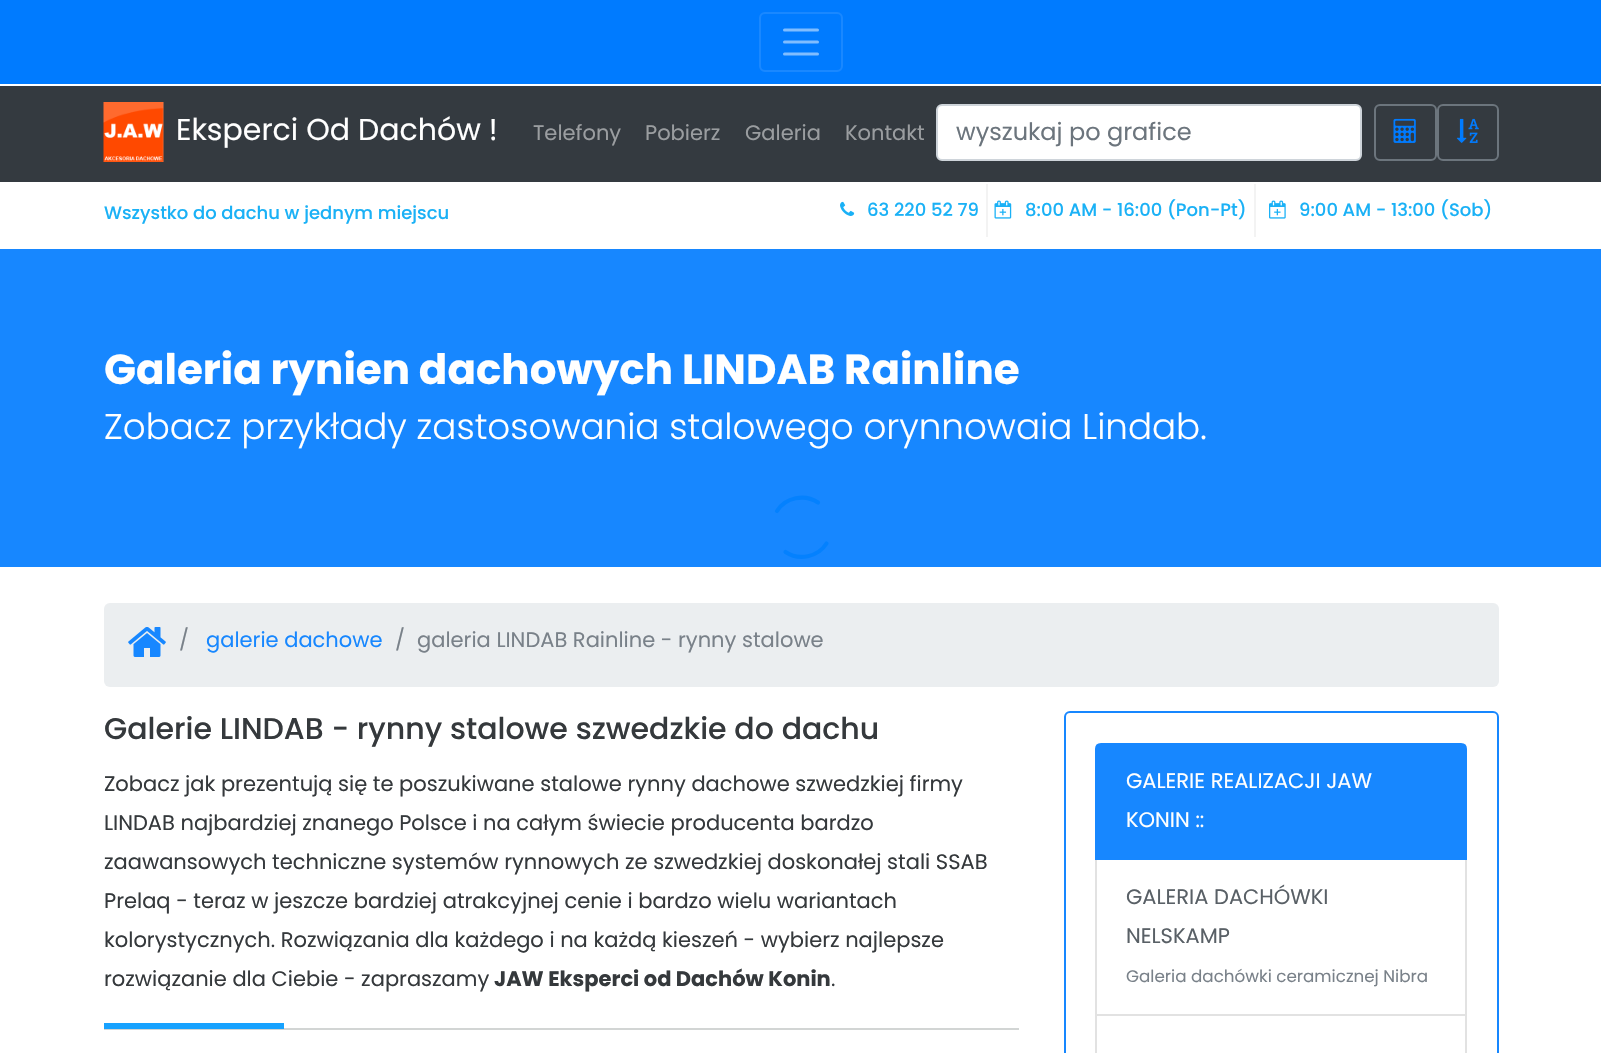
void draw(SkCanvas* canvas) {
  SkPaint paint;
  paint.setAntiAlias(true);
  auto face = [&](const char* family, int weight, float size, bool italic = false) {
    SkFontStyle style(weight, SkFontStyle::kNormal_Width,
      italic ? SkFontStyle::kItalic_Slant : SkFontStyle::kUpright_Slant);
    SkFont result(fontMgr->matchFamilyStyle(family, style), size);
    result.setSubpixel(true);
    return result;
  };
  auto paste = [&](const char* path, float x, float y, float w, float h) {
    auto image = SkImages::DeferredFromEncodedData(SkData::MakeFromFileName(path));
    canvas->drawImageRect(image, SkRect::MakeXYWH(x, y, w, h), SkSamplingOptions());
  };
  auto shape = [&](const char* data, bool evenOdd = false) {
    SkPath result = *SkParsePath::FromSVGString(data);
    if (evenOdd) result.setFillType(SkPathFillType::kEvenOdd);
    return result;
  };
  canvas->clear(0xffffffff);
  paint.setColor(0xff007bff);
  canvas->drawRect(SkRect::MakeXYWH(0, 0, 1601, 84), paint);
  paint.setStroke(true);
  paint.setStrokeWidth(2);
  paint.setColor(0xff1a88ff);
  canvas->drawRoundRect(SkRect::MakeXYWH(760, 13, 82, 58), 5, 5, paint);
  paint.setStrokeWidth(3);
  paint.setStrokeCap(SkPaint::kRound_Cap);
  paint.setColor(0xff80bdff);
  canvas->drawPath(shape("M784.5 30H817.5M784.5 42H817.5M784.5 54H817.5"), paint);
  paint.setStroke(false);
  {
    const struct { float x, y, w, h; SkColor color; } items[] = {
      {0, 86, 1601, 96, 0xff343a40},
      {1254, 183, 2, 54, 0xfff3f3f3},
      {986, 183, 2, 54, 0xfff3f3f3},
      {986, 183, 270, 1, 0xffffffff},
    };
    for (auto [x, y, w, h, color] : items) {
      paint.setColor(color);
      canvas->drawRect(SkRect::MakeXYWH(x, y, w, h), paint);
    }
  }
  paste("img/1.png", 103, 102, 61, 60);
  canvas->drawRoundRect(SkRect::MakeXYWH(937, 105, 424, 55), 5, 5, paint);
  paint.setStroke(true);
  paint.setStrokeWidth(2);
  paint.setStrokeCap(SkPaint::kButt_Cap);
  paint.setColor(0xffced4da);
  canvas->drawRoundRect(SkRect::MakeXYWH(937, 105, 424, 55), 5, 5, paint);
  paint.setColor(0xff6c757d);
  canvas->drawRoundRect(SkRect::MakeXYWH(1375, 105, 61, 55), 5, 5, paint);
  paste("img/2.png", 1393, 118, 23, 25);
  canvas->drawRoundRect(SkRect::MakeXYWH(1438, 105, 60, 55), 5, 5, paint);
  paste("img/3.png", 1456, 118, 23, 25);
  paste("img/4.png", 840, 201, 15, 15);
  paste("img/5.png", 994, 200, 18, 19);
  paste("img/6.png", 1269, 200, 17, 19);
  paint.setStroke(false);
  paint.setColor(0xff1787ff);
  canvas->drawRect(SkRect::MakeXYWH(0, 249, 1601, 318), paint);
  paint.setStroke(true);
  paint.setStrokeWidth(4.2f);
  paint.setStrokeCap(SkPaint::kRound_Cap);
  paint.setColor(0xff0481fe);
  canvas->drawPath(shape("M777 511C785.5 497.5 804.5 493.5 818 502.5M826.5 543.5C818 557 799 561 785.5 552"), paint);
  paint.setStroke(false);
  paint.setColor(0xffebeef0);
  canvas->drawRoundRect(SkRect::MakeXYWH(104, 603, 1395, 84), 6, 6, paint);
  paste("img/7.png", 128, 627, 38, 30);
  paint.setColor(0xffd2d5d4);
  canvas->drawRect(SkRect::MakeXYWH(104, 1028, 915, 2), paint);
  paint.setColor(0xff17a2ff);
  canvas->drawRect(SkRect::MakeXYWH(104, 1023, 180, 6), paint);
  paint.setStroke(true);
  paint.setStrokeWidth(2);
  paint.setStrokeCap(SkPaint::kButt_Cap);
  paint.setColor(0xff1787ff);
  canvas->drawRoundRect(SkRect::MakeXYWH(1065, 712, 433, 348), 5, 5, paint);
  paint.setColor(0xffe2e2e2);
  canvas->drawRect(SkRect::MakeXYWH(1096, 859, 370, 156), paint);
  paint.setStroke(false);
  paint.setColor(0xff1787ff);
  canvas->drawPath(shape("M1101 744H1461C1464 744 1466 746 1466 749V859H1096V749C1096 746 1098 744 1101 744Z"), paint);
  paint.setStroke(true);
  canvas->drawPath(shape("M1101 744H1461C1464 744 1466 746 1466 749V859H1096V749C1096 746 1098 744 1101 744Z"), paint);
  paint.setColor(0xffe2e2e2);
  canvas->drawRect(SkRect::MakeXYWH(1096, 1015, 370, 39), paint);
  auto f0 = face("Poppins", 400, 30);
  paint.setStroke(false);
  paint.setColor(0xffffffff);
  canvas->drawString("Eksperci Od Dachów !", 176, 140, f0, paint);
  auto f1 = face("Poppins", 400, 21);
  paint.setColor(0xff9a9da0);
  {
    const struct { const char* s; float x, y; } items[] = {
      {"Telefony", 533, 140},
      {"Pobierz", 645, 140},
      {"Galeria", 745, 140},
      {"Kontakt", 845, 140},
    };
    for (auto [s, x, y] : items) {
      canvas->drawString(s, x, y, f1, paint);
    }
  }
  auto f2 = face("Poppins", 400, 24);
  paint.setColor(0xff6c757d);
  canvas->drawString("wyszukaj po grafice", 956, 140, f2, paint);
  auto f3 = face("Poppins", 500, 18);
  paint.setColor(0xff1ab1f6);
  {
    const struct { const char* s; float x, y; } items[] = {
      {"Wszystko do dachu w jednym miejscu", 104, 219},
      {"63 220 52 79", 867, 216},
      {"8:00 AM - 16:00 (Pon-Pt)", 1025, 216},
      {"9:00 AM - 13:00 (Sob)", 1299, 216},
    };
    for (auto [s, x, y] : items) {
      canvas->drawString(s, x, y, f3, paint);
    }
  }
  auto f4 = face("Poppins", 700, 42);
  paint.setColor(0xffffffff);
  canvas->drawString("Galeria rynien dachowych LINDAB Rainline", 104, 384, f4, paint);
  auto f5 = face("Poppins", 300, 35.7f);
  canvas->drawString("Zobacz przykłady zastosowania stalowego orynnowaia Lindab.", 104, 439, f5, paint);
  paint.setColor(0xff798189);
  canvas->drawString("/", 179, 647, f1, paint);
  paint.setColor(0xff1787ff);
  canvas->drawString("galerie dachowe", 206, 647, f1, paint);
  paint.setColor(0xff798189);
  canvas->drawString("/", 395, 647, f1, paint);
  canvas->drawString("galeria LINDAB Rainline - rynny stalowe", 417, 647, f1, paint);
  auto f6 = face("Poppins", 500, 30);
  paint.setColor(0xff35393c);
  canvas->drawString("Galerie LINDAB - rynny stalowe szwedzkie do dachu", 104, 739, f6, paint);
  {
    const struct { const char* s; float x, y; } items[] = {
      {"Zobacz jak prezentują się te poszukiwane stalowe rynny dachowe szwedzkiej firmy", 104, 791},
      {"LINDAB najbardziej znanego Polsce i na całym świecie producenta bardzo", 104, 830},
      {"zaawansowych techniczne systemów rynnowych ze szwedzkiej doskonałej stali SSAB", 104, 869},
      {"Prelaq - teraz w jeszcze bardziej atrakcyjnej cenie i bardzo wielu wariantach", 104, 908},
      {"kolorystycznych. Rozwiązania dla każdego i na każdą kieszeń - wybierz najlepsze", 104, 947},
      {"rozwiązanie dla Ciebie - zapraszamy", 104, 986},
    };
    for (auto [s, x, y] : items) {
      canvas->drawString(s, x, y, f1, paint);
    }
  }
  auto f7 = face("Poppins", 700, 21);
  canvas->drawString("JAW Eksperci od Dachów Konin", 494, 986, f7, paint);
  canvas->drawString(".", 831, 986, f1, paint);
  paint.setColor(0xffffffff);
  canvas->drawString("GALERIE REALIZACJI JAW", 1126, 788, f1, paint);
  canvas->drawString("KONIN ::", 1126, 827, f1, paint);
  paint.setColor(0xff596066);
  canvas->drawString("GALERIA DACHÓWKI", 1126, 904, f1, paint);
  canvas->drawString("NELSKAMP", 1126, 943, f1, paint);
  auto f8 = face("Poppins", 400, 16.75f);
  paint.setColor(0xff798189);
  canvas->drawString("Galeria dachówki ceramicznej Nibra", 1126, 982, f8, paint);
}
